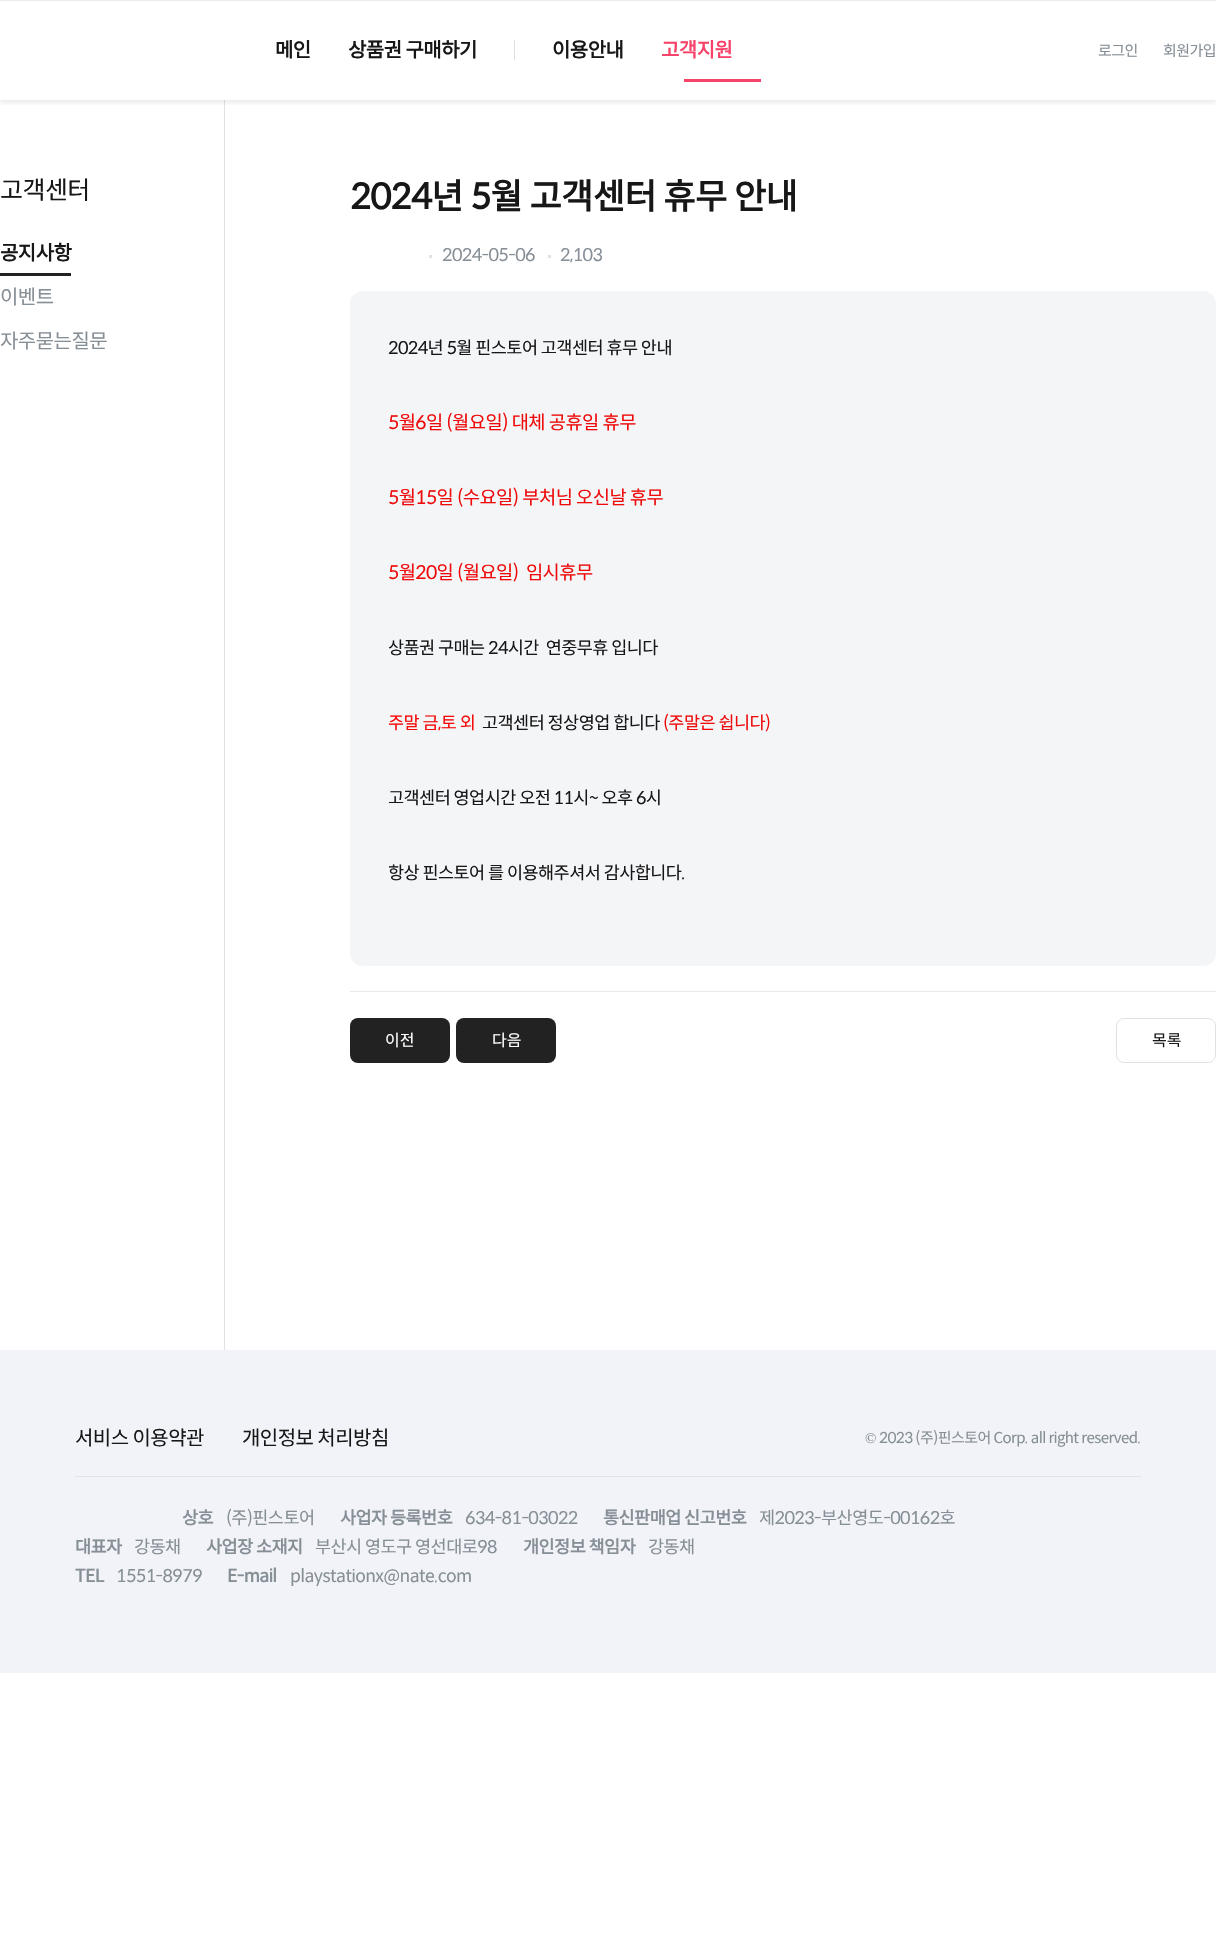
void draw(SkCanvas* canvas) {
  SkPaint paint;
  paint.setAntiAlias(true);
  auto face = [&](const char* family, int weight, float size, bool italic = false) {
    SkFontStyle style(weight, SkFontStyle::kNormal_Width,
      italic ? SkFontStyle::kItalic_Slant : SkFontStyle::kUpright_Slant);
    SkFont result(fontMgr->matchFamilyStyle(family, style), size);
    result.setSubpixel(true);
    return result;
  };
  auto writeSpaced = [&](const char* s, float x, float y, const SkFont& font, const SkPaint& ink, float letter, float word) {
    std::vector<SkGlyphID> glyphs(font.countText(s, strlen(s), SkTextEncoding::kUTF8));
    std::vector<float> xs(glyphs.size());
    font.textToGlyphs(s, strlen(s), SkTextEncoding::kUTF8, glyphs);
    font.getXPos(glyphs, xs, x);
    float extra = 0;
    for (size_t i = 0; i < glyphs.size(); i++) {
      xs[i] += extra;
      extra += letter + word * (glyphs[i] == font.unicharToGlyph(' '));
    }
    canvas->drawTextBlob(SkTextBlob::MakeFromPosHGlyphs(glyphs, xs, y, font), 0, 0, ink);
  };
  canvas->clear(0xffffffff);
  paint.setColor(0xffdee2e6);
  canvas->drawRect(SkRect::MakeXYWH(224, 100, 1, 1250), paint);
  canvas->save();
  canvas->clipRect(SkRect::MakeXYWH(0, 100, 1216, 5));
  paint.setColor(0x14000000);
  paint.setMaskFilter(SkMaskFilter::MakeBlur(kNormal_SkBlurStyle, 2.5f));
  canvas->drawRect(SkRect::MakeXYWH(0, 3, 1216, 100), paint);
  paint.setMaskFilter(nullptr);
  canvas->restore();
  {
    const struct { float x, y, w, h; SkColor color; } items[] = {
      {0, 0, 1216, 1, 0xffe9ecef},
      {514, 40, 1, 20, 0xffdee2e6},
      {684, 79, 77, 3, 0xfff74269},
      {0, 273, 71, 3, 0xff222222},
      {429, 255, 3, 3, 0xffe1e1e1},
      {548, 255, 3, 3, 0xffe1e1e1},
      {350, 991, 866, 1, 0xffe7ebf0},
    };
    for (auto [x, y, w, h, color] : items) {
      paint.setColor(color);
      canvas->drawRect(SkRect::MakeXYWH(x, y, w, h), paint);
    }
  }
  paint.setColor(0xfff3f5f7);
  canvas->drawRoundRect(SkRect::MakeXYWH(350, 291, 866, 675), 13, 13, paint);
  paint.setColor(0xff222222);
  canvas->drawRoundRect(SkRect::MakeXYWH(350, 1018, 100, 45), 8, 8, paint);
  canvas->drawRoundRect(SkRect::MakeXYWH(456, 1018, 100, 45), 8, 8, paint);
  paint.setStroke(true);
  paint.setStrokeWidth(1);
  paint.setColor(0xffdee2e6);
  canvas->drawRoundRect(SkRect::MakeXYWH(1116.5f, 1018.5f, 99, 44), 7.5f, 7.5f, paint);
  paint.setStroke(false);
  paint.setColor(0xfff1f3f8);
  canvas->drawRect(SkRect::MakeXYWH(0, 1350, 1216, 323), paint);
  paint.setColor(0xffdee2e6);
  canvas->drawRect(SkRect::MakeXYWH(75, 1476, 1066, 1), paint);
  auto f0 = face("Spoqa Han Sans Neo", 700, 20);
  paint.setColor(0xff181717);
  {
    const struct { const char* s; float x, y; } items[] = {
      {"메인", 275, 57},
      {"상품권 구매하기", 348, 57},
      {"이용안내", 552, 57},
    };
    for (auto [s, x, y] : items) {
      writeSpaced(s, x, y, f0, paint, -0.55f, 0);
    }
  }
  paint.setColor(0xfff74269);
  writeSpaced("고객지원", 661, 57, f0, paint, -0.55f, 0);
  auto f1 = face("Spoqa Han Sans Neo", 400, 15);
  paint.setColor(0xff868e96);
  writeSpaced("로그인", 1098, 56, f1, paint, -0.55f, 0);
  writeSpaced("회원가입", 1163, 56, f1, paint, -0.55f, 0);
  auto f2 = face("Spoqa Han Sans Neo", 400, 25);
  paint.setColor(0xff181717);
  writeSpaced("고객센터", 0, 199, f2, paint, -0.55f, 0);
  writeSpaced("공지사항", 0, 260, f0, paint, -0.55f, 0);
  auto f3 = face("Spoqa Han Sans Neo", 400, 20);
  paint.setColor(0xff868e96);
  writeSpaced("이벤트", 0, 304, f3, paint, -0.55f, 0);
  writeSpaced("자주묻는질문", 0, 348, f3, paint, -0.55f, 0);
  auto f4 = face("Spoqa Han Sans Neo", 700, 35);
  paint.setColor(0xff181717);
  writeSpaced("2024년 5월 고객센터 휴무 안내", 350, 209, f4, paint, -0.55f, 0);
  auto f5 = face("Spoqa Han Sans Neo", 400, 17.5f);
  paint.setColor(0xff868e96);
  writeSpaced("2024-05-06", 442, 261, f5, paint, -0.55f, 0);
  writeSpaced("2,103", 560, 261, f5, paint, -0.55f, 0);
  paint.setColor(0xff181717);
  writeSpaced("2024년 5월 핀스토어 고객센터 휴무 안내", 388, 354, f5, paint, -0.55f, 0);
  auto f6 = face("Spoqa Han Sans Neo", 400, 18.75f);
  paint.setColor(0xffef0b0b);
  {
    const struct { const char* s; float x, y; } items[] = {
      {"5월6일 (월요일) 대체 공휴일 휴무", 388, 429},
      {"5월15일 (수요일) 부처님 오신날 휴무", 388, 504},
      {"5월20일 (월요일)  임시휴무", 388, 579},
    };
    for (auto [s, x, y] : items) {
      writeSpaced(s, x, y, f6, paint, -0.55f, 0);
    }
  }
  paint.setColor(0xff181717);
  writeSpaced("상품권 구매는 24시간  연중무휴 입니다", 388, 654, f5, paint, -0.55f, 0);
  paint.setColor(0xfff50a0a);
  writeSpaced("주말 금,토 외", 388, 729, f5, paint, -0.55f, 0);
  paint.setColor(0xff181717);
  writeSpaced("고객센터 정상영업 합니다", 482, 729, f5, paint, -0.55f, 0);
  paint.setColor(0xffef0b0b);
  writeSpaced("(주말은 쉽니다)", 663, 729, f5, paint, -0.55f, 0);
  paint.setColor(0xff181717);
  writeSpaced("고객센터 영업시간 오전 11시~ 오후 6시", 388, 804, f5, paint, -0.55f, 0);
  writeSpaced("항상 핀스토어 를 이용해주셔서 감사합니다.", 388, 879, f5, paint, -0.55f, 0);
  auto f7 = face("Spoqa Han Sans Neo", 400, 16);
  paint.setColor(0xffffffff);
  canvas->drawString("이전", 385, 1046, f7, paint);
  canvas->drawString("다음", 492, 1046, f7, paint);
  paint.setColor(0xff181717);
  canvas->drawString("목록", 1152, 1046, f7, paint);
  writeSpaced("서비스 이용약관", 75, 1445, f3, paint, -0.55f, 0);
  writeSpaced("개인정보 처리방침", 242, 1445, f3, paint, -0.55f, 0);
  auto f8 = face("Liberation Serif", 400, 15);
  paint.setColor(0xff868e96);
  writeSpaced("©", 865, 1443, f8, paint, -0.55f, 0);
  writeSpaced("2023 (주)핀스토어 Corp. all right reserved.", 879, 1443, f1, paint, -0.55f, 0);
  auto f9 = face("Spoqa Han Sans Neo", 700, 17.5f);
  writeSpaced("상호", 182, 1524, f9, paint, -0.55f, 0);
  writeSpaced("(주)핀스토어", 226, 1524, f5, paint, -0.55f, 0);
  writeSpaced("사업자 등록번호", 340, 1524, f9, paint, -0.55f, 0);
  writeSpaced("634-81-03022", 465, 1524, f5, paint, -0.55f, 0);
  writeSpaced("통신판매업 신고번호", 603, 1524, f9, paint, -0.55f, 0);
  writeSpaced("제2023-부산영도-00162호", 759, 1524, f5, paint, -0.55f, 0);
  writeSpaced("대표자", 75, 1553, f9, paint, -0.55f, 0);
  writeSpaced("강동채", 134, 1553, f5, paint, -0.55f, 0);
  writeSpaced("사업장 소재지", 206, 1553, f9, paint, -0.55f, 0);
  writeSpaced("부산시 영도구 영선대로98", 315, 1553, f5, paint, -0.55f, 0);
  writeSpaced("개인정보 책임자", 523, 1553, f9, paint, -0.55f, 0);
  writeSpaced("강동채", 648, 1553, f5, paint, -0.55f, 0);
  writeSpaced("TEL", 75, 1582, f9, paint, -0.55f, 0);
  writeSpaced("1551-8979", 116, 1582, f5, paint, -0.55f, 0);
  writeSpaced("E-mail", 227, 1582, f9, paint, -0.55f, 0);
  writeSpaced("playstationx@nate.com", 290, 1582, f5, paint, -0.55f, 0);
}
